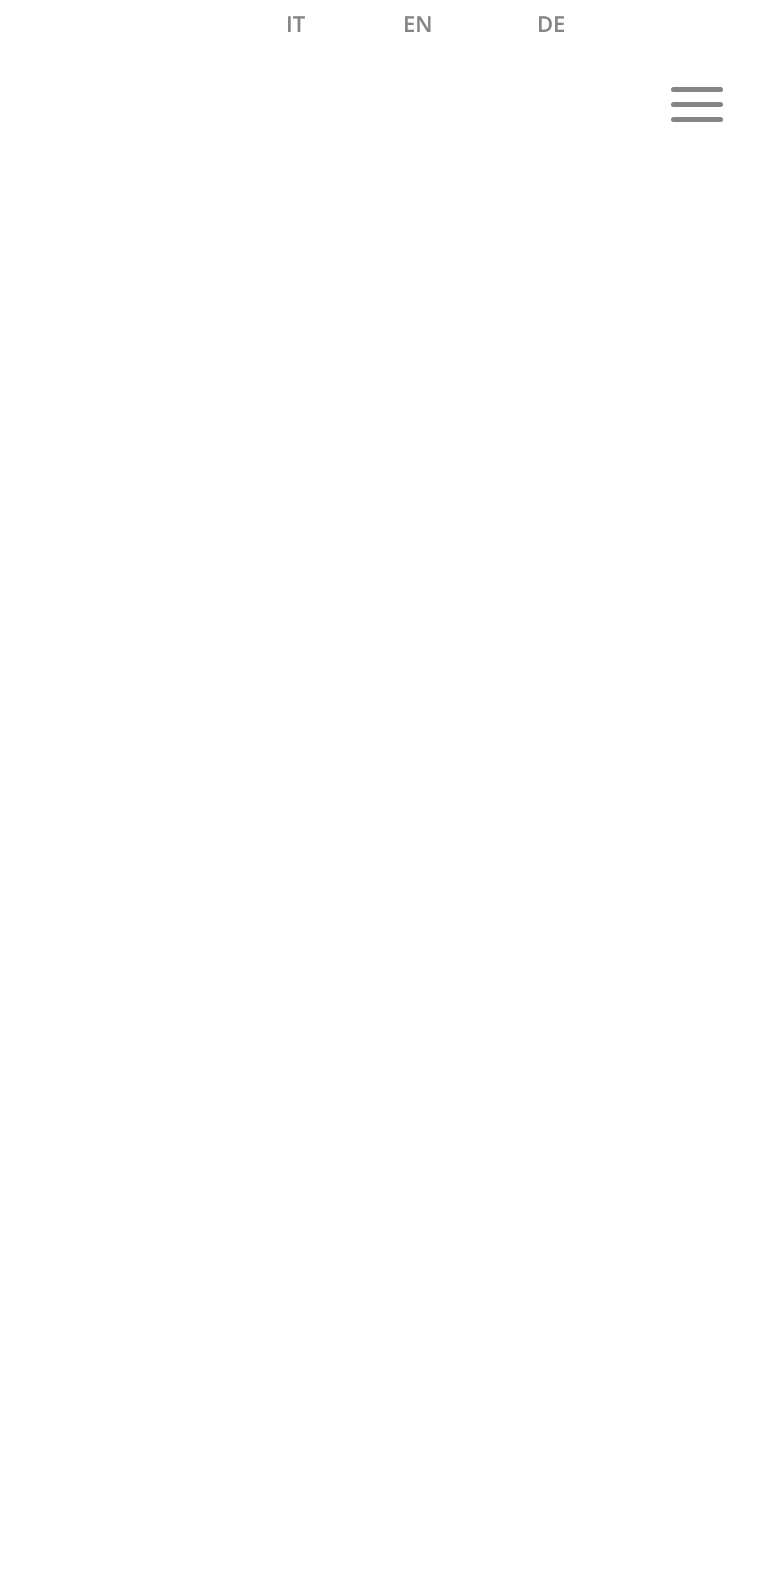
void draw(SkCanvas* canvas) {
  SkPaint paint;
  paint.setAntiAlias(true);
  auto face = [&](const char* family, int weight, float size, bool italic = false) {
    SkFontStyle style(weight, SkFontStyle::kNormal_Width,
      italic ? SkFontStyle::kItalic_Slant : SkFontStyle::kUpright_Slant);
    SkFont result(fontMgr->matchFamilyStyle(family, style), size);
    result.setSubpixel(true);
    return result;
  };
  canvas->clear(0xffffffff);
  paint.setColor(0xff858585);
  canvas->drawRoundRect(SkRect::MakeXYWH(671, 102, 52, 5), 2.5f, 2.5f, paint);
  canvas->drawRoundRect(SkRect::MakeXYWH(671, 87, 52, 5), 2.5f, 2.5f, paint);
  canvas->drawRoundRect(SkRect::MakeXYWH(671, 117, 52, 5), 2.5f, 2.5f, paint);
  auto f0 = face("Open Sans", 600, 22);
  {
    const struct { const char* s; float x, y; } items[] = {
      {"IT", 286, 32},
      {"EN", 403, 32},
      {"DE", 537, 32},
    };
    for (auto [s, x, y] : items) {
      canvas->drawString(s, x, y, f0, paint);
    }
  }
}
